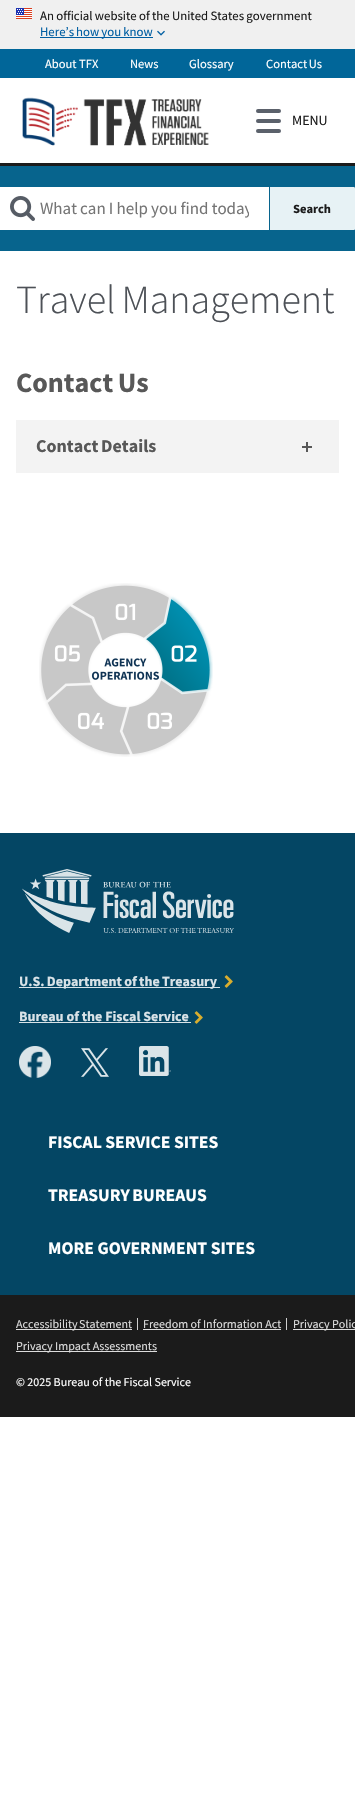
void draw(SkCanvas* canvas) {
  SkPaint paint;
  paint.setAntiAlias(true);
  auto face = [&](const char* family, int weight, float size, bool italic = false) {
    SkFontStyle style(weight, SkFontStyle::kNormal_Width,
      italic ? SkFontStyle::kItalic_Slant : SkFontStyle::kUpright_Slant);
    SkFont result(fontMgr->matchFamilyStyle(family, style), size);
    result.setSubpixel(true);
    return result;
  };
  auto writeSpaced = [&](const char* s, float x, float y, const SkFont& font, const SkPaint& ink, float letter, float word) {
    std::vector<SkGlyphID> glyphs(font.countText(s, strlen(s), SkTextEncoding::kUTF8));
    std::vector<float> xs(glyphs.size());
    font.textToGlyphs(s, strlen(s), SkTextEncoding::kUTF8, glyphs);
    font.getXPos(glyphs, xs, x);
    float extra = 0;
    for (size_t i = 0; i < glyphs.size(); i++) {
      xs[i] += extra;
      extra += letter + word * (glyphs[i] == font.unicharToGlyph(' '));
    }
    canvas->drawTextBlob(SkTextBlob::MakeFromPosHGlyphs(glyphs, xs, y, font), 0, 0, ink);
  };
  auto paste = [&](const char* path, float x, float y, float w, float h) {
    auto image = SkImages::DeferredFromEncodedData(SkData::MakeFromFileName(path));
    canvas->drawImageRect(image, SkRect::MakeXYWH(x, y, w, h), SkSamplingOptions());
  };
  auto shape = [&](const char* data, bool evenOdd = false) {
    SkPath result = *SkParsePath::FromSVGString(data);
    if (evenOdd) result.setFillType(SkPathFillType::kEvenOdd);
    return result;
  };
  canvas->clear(0xffffffff);
  paint.setColor(0xfff0f0f0);
  canvas->drawRect(SkRect::MakeXYWH(0, 0, 355, 49), paint);
  paste("img/1.png", 16, 8, 16, 11);
  paint.setColor(0xff005ea2);
  canvas->drawRect(SkRect::MakeXYWH(40, 37, 113, 1), paint);
  paste("img/2.png", 157, 30, 8, 6);
  paint.setColor(0xff1b1b1b);
  canvas->drawRect(SkRect::MakeXYWH(0, 163, 355, 3), paint);
  paint.setColor(0xff016699);
  canvas->drawRect(SkRect::MakeXYWH(0, 49, 355, 29), paint);
  paste("img/3.png", 22, 97, 187, 49);
  paint.setColor(0xff5b616b);
  canvas->drawRoundRect(SkRect::MakeXYWH(256, 119, 25, 4), 2, 2, paint);
  canvas->drawRoundRect(SkRect::MakeXYWH(256, 109, 25, 4), 2, 2, paint);
  canvas->drawRoundRect(SkRect::MakeXYWH(256, 129, 25, 4), 2, 2, paint);
  paint.setColor(0xff07648d);
  canvas->drawRect(SkRect::MakeXYWH(0, 166, 355, 85), paint);
  paint.setColor(0xffffffff);
  canvas->drawRect(SkRect::MakeXYWH(0, 187, 269, 43), paint);
  paste("img/4.png", 10, 196, 25, 25);
  paint.setColor(0xffe7f2f5);
  canvas->drawPath(shape("M270 187H353.5C354.5 187 355 187.5 355 188.5V228.5C355 229.5 354.5 230 353.5 230H270Z"), paint);
  {
    const struct { float x, y, w, h; SkColor color; } items[] = {
      {16, 420, 323, 53, 0xfff3f3f3},
      {306, 442, 2, 10, 0xff585858},
      {302, 446, 10, 2, 0xff585858},
    };
    for (auto [x, y, w, h, color] : items) {
      paint.setColor(color);
      canvas->drawRect(SkRect::MakeXYWH(x, y, w, h), paint);
    }
  }
  paste("img/5.png", 39, 583, 174, 174);
  paint.setColor(0xff1b1b1b);
  canvas->drawRect(SkRect::MakeXYWH(0, 1295, 355, 122), paint);
  paint.setColor(0xff044664);
  canvas->drawRect(SkRect::MakeXYWH(0, 833, 355, 462), paint);
  paste("img/6.png", 22, 869, 212, 64);
  paint.setColor(0xffd9e3e8);
  canvas->drawRect(SkRect::MakeXYWH(19, 987, 201, 1), paint);
  paste("img/7.png", 224, 975, 9, 13);
  canvas->drawRect(SkRect::MakeXYWH(19, 1022, 172, 1), paint);
  paste("img/7.png", 194, 1011, 9, 13);
  paste("img/8.png", 19, 1046, 32, 32);
  paste("img/9.png", 81, 1048, 28, 29);
  paste("img/10.png", 139, 1046, 32, 30);
  {
    const struct { float x, y, w, h; SkColor color; } items[] = {
      {16, 1329, 116, 1, 0xffdddddd},
      {143, 1329, 138, 1, 0xffdddddd},
      {293, 1329, 62, 1, 0xffdddddd},
      {16, 1351, 141, 1, 0xffdddddd},
    };
    for (auto [x, y, w, h, color] : items) {
      paint.setColor(color);
      canvas->drawRect(SkRect::MakeXYWH(x, y, w, h), paint);
    }
  }
  auto f0 = face("Source Sans Pro", 400, 12.8f);
  paint.setColor(0xff1b1b1b);
  writeSpaced("An official website of the United States government", 40, 20, f0, paint, 0, -0.25f);
  paint.setColor(0xff005ea2);
  writeSpaced("Here’s how you know", 40, 36, f0, paint, 0, -0.5f);
  auto f1 = face("Source Sans Pro", 400, 12.5f);
  paint.setColor(0xffffffff);
  {
    const struct { const char* s; float x, y; } items[] = {
      {"About TFX", 45, 68},
      {"News", 130, 68},
      {"Glossary", 189, 68},
    };
    for (auto [s, x, y] : items) {
      canvas->drawString(s, x, y, f1, paint);
    }
  }
  writeSpaced("Contact Us", 266, 68, f1, paint, 0, -1);
  auto f2 = face("Source Sans Pro", 400, 14);
  paint.setColor(0xff1b1b1b);
  canvas->drawString("MENU", 292, 125, f2, paint);
  canvas->save();
  canvas->clipRect(SkRect::MakeXYWH(40, 197, 209, 22));
  auto f3 = face("Source Sans Pro", 400, 17);
  paint.setColor(0xff757575);
  writeSpaced("What can I help you find today", 40, 214, f3, paint, 0, -0.25f);
  canvas->restore();
  auto f4 = face("Source Sans Pro", 700, 12.5f);
  paint.setColor(0xff1b1b1b);
  canvas->drawString("Search", 293, 213, f4, paint);
  auto f5 = face("Source Sans Pro", 300, 40);
  paint.setColor(0xff4d5157);
  writeSpaced("Travel Management", 16, 313, f5, paint, 0, -2);
  auto f6 = face("Source Sans Pro", 700, 28);
  paint.setColor(0xff585858);
  writeSpaced("Contact Us", 16, 392, f6, paint, 0, -1);
  auto f7 = face("Source Sans Pro", 700, 18);
  writeSpaced("Contact Details", 36, 452, f7, paint, 0, -1);
  auto f8 = face("Source Sans Pro", 700, 14);
  paint.setColor(0xffd9e3e8);
  writeSpaced("U.S. Department of the Treasury", 19, 986, f8, paint, 0, -0.5f);
  canvas->drawString("Bureau of the Fiscal Service", 19, 1021, f8, paint);
  auto f9 = face("Source Sans Pro", 700, 17.6f);
  paint.setColor(0xffffffff);
  canvas->drawString("FISCAL SERVICE SITES", 48, 1148, f9, paint);
  writeSpaced("TREASURY BUREAUS", 48, 1201, f9, paint, 0, -1);
  canvas->drawString("MORE GOVERNMENT SITES", 48, 1254, f9, paint);
  auto f10 = face("Source Sans Pro", 400, 12);
  paint.setColor(0xffdddddd);
  writeSpaced("Accessibility Statement", 16, 1328, f10, paint, 0, -1);
  paint.setColor(0xffffffff);
  canvas->drawString("|", 136, 1327, f10, paint);
  paint.setColor(0xffdddddd);
  canvas->drawString("Freedom of Information Act", 143, 1328, f10, paint);
  paint.setColor(0xffffffff);
  canvas->drawString("|", 285, 1327, f10, paint);
  paint.setColor(0xffdddddd);
  canvas->drawString("Privacy Polic", 293, 1328, f10, paint);
  canvas->drawString("Privacy Impact Assessments", 16, 1350, f10, paint);
  paint.setColor(0xffffffff);
  canvas->drawString("© 2025 Bureau of the Fiscal Service", 16, 1386, f10, paint);
}
